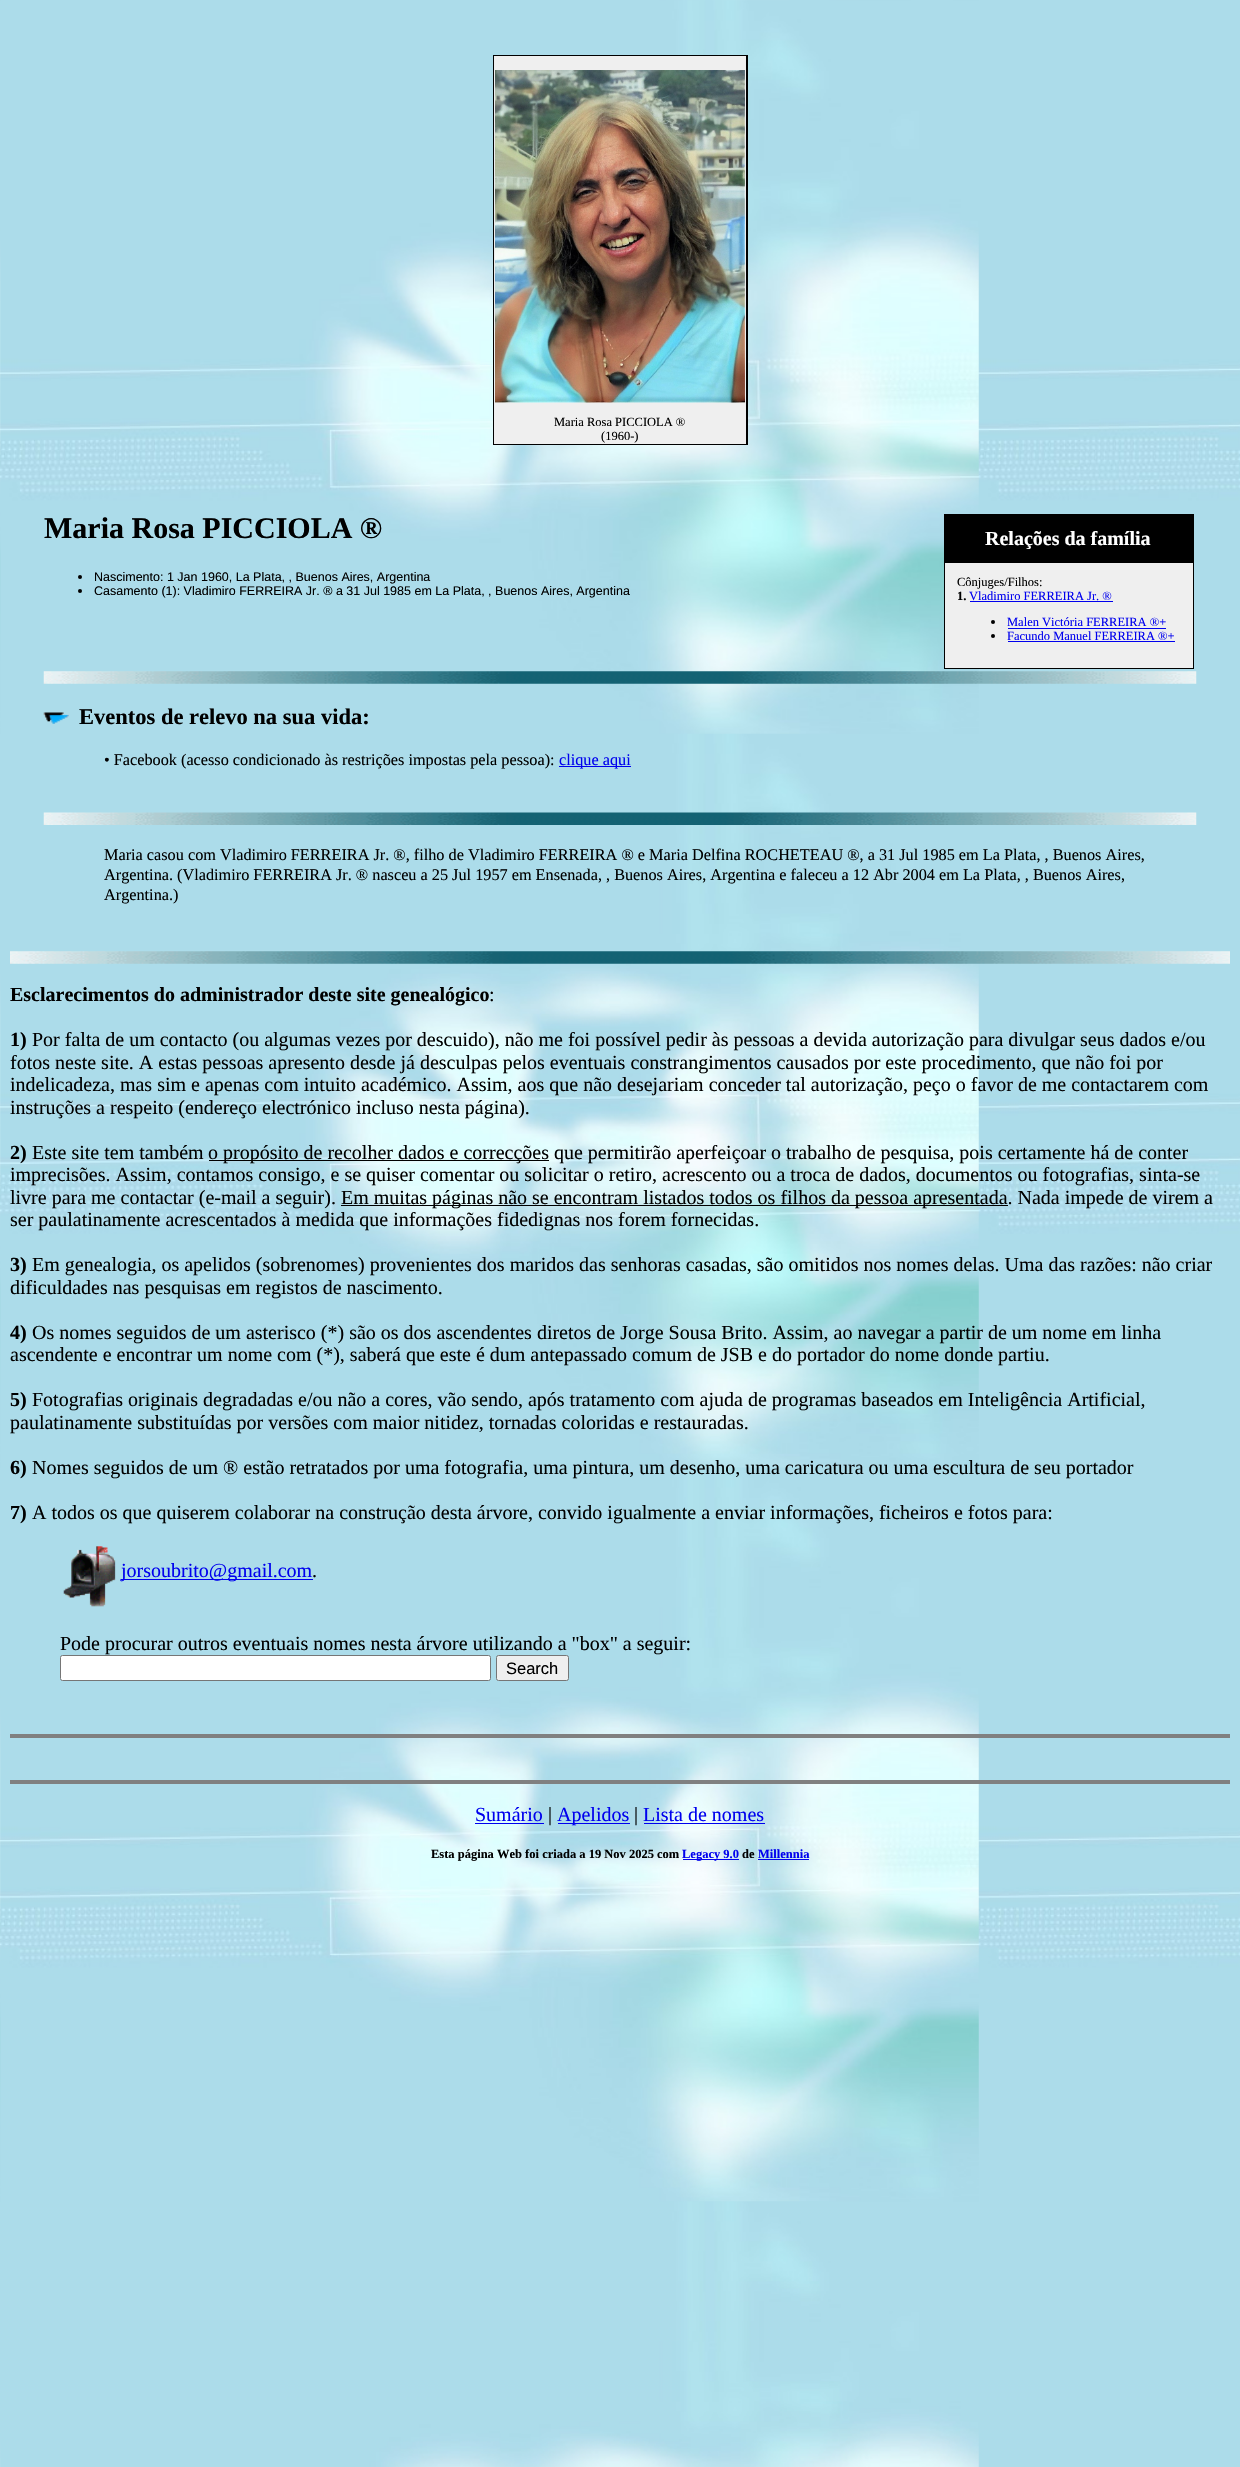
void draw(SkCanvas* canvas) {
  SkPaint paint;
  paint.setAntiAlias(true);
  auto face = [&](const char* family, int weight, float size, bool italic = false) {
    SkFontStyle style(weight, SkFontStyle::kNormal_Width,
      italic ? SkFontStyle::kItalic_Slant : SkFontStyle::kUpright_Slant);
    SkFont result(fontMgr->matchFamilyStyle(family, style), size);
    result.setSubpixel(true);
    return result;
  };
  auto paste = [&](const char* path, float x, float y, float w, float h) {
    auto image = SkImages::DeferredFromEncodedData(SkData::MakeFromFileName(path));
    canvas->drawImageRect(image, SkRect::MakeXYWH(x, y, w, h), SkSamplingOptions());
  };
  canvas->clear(0xffffffff);
  paste("img/1.png", 0, 0, 1240, 2467);
  paint.setColor(0xff000000);
  canvas->drawRect(SkRect::MakeXYWH(493, 55, 255, 390), paint);
  paint.setColor(0xffefefef);
  canvas->drawRect(SkRect::MakeXYWH(494, 56, 252, 388), paint);
  paste("img/2.png", 495, 70, 250, 333);
  {
    const struct { float x, y, w, h; SkColor color; } items[] = {
      {944, 514, 250, 155, 0xff000000},
      {945, 563, 248, 105, 0xffefefef},
      {970, 601, 143, 1, 0xff0000ee},
    };
    for (auto [x, y, w, h, color] : items) {
      paint.setColor(color);
      canvas->drawRect(SkRect::MakeXYWH(x, y, w, h), paint);
    }
  }
  paint.setColor(0xff000000);
  canvas->drawCircle(993, 622, 2, paint);
  paint.setColor(0xff0000ee);
  canvas->drawRect(SkRect::MakeXYWH(1008, 628, 158, 1), paint);
  paint.setColor(0xff000000);
  canvas->drawCircle(993, 636, 2, paint);
  paint.setColor(0xff0000ee);
  canvas->drawRect(SkRect::MakeXYWH(1008, 641, 167, 1), paint);
  paint.setColor(0xff000000);
  canvas->drawCircle(80, 577, 2, paint);
  canvas->drawCircle(80, 591, 2, paint);
  paste("img/3.png", 43, 671, 1154, 13);
  paste("img/4.png", 43, 712, 26, 12);
  paint.setColor(0xff0000ee);
  canvas->drawRect(SkRect::MakeXYWH(559, 766, 72, 1), paint);
  paste("img/5.png", 43, 812, 1154, 13);
  paste("img/6.png", 10, 951, 1220, 13);
  paint.setColor(0xff000000);
  canvas->drawRect(SkRect::MakeXYWH(209, 1160, 340, 1), paint);
  canvas->drawRect(SkRect::MakeXYWH(341, 1205, 667, 1), paint);
  paste("img/7.png", 63, 1546, 53, 61);
  paint.setColor(0xff0000ee);
  canvas->drawRect(SkRect::MakeXYWH(121, 1579, 192, 1), paint);
  paint.setColor(0xffffffff);
  canvas->drawRoundRect(SkRect::MakeXYWH(60.5f, 1655.5f, 430, 25), 2, 2, paint);
  paint.setStroke(true);
  paint.setStrokeWidth(1);
  paint.setColor(0xff767676);
  canvas->drawRoundRect(SkRect::MakeXYWH(60.5f, 1655.5f, 430, 25), 2, 2, paint);
  paint.setStroke(false);
  paint.setColor(0xffefefef);
  canvas->drawRoundRect(SkRect::MakeXYWH(496.5f, 1655.5f, 72, 25), 2, 2, paint);
  paint.setStroke(true);
  paint.setColor(0xff767676);
  canvas->drawRoundRect(SkRect::MakeXYWH(496.5f, 1655.5f, 72, 25), 2, 2, paint);
  paint.setStroke(false);
  {
    const struct { float x, y, w, h; SkColor color; } items[] = {
      {10, 1734, 1220, 4, 0xff808080},
      {10, 1780, 1220, 4, 0xff808080},
      {475, 1823, 69, 1, 0xff0000ee},
      {558, 1823, 72, 1, 0xff0000ee},
      {644, 1823, 121, 1, 0xff0000ee},
      {683, 1859, 56, 1, 0xff0000ee},
      {758, 1859, 51, 1, 0xff0000ee},
    };
    for (auto [x, y, w, h, color] : items) {
      paint.setColor(color);
      canvas->drawRect(SkRect::MakeXYWH(x, y, w, h), paint);
    }
  }
  auto f0 = face("Liberation Serif", 400, 12.5f);
  paint.setColor(0xff000000);
  canvas->drawString("Maria Rosa PICCIOLA ®", 554, 426, f0, paint);
  canvas->drawString("(1960-)", 601, 440, f0, paint);
  auto f1 = face("Liberation Serif", 700, 30);
  canvas->drawString("Maria Rosa PICCIOLA ®", 44, 538, f1, paint);
  auto f2 = face("Liberation Serif", 700, 20);
  paint.setColor(0xffffffff);
  canvas->drawString("Relações da família", 985, 545, f2, paint);
  paint.setColor(0xff000000);
  canvas->drawString("Cônjuges/Filhos:", 957, 586, f0, paint);
  auto f3 = face("Liberation Serif", 700, 12.5f);
  canvas->drawString("1.", 957, 600, f3, paint);
  paint.setColor(0xff0000ee);
  {
    const struct { const char* s; float x, y; } items[] = {
      {"Vladimiro FERREIRA Jr. ®", 969, 600},
      {"Malen Victória FERREIRA ®+", 1007, 626},
      {"Facundo Manuel FERREIRA ®+", 1007, 640},
    };
    for (auto [s, x, y] : items) {
      canvas->drawString(s, x, y, f0, paint);
    }
  }
  auto f4 = face("Liberation Sans", 400, 12.5f);
  paint.setColor(0xff000000);
  canvas->drawString("Nascimento: 1 Jan 1960, La Plata, , Buenos Aires, Argentina", 94, 581, f4, paint);
  canvas->drawString("Casamento (1): Vladimiro FERREIRA Jr. ® a 31 Jul 1985 em La Plata, , Buenos Aires, Argentina", 94, 595, f4, paint);
  auto f5 = face("Liberation Serif", 700, 22.5f);
  canvas->drawString("Eventos de relevo na sua vida:", 79, 724, f5, paint);
  auto f6 = face("Liberation Serif", 400, 16.25f);
  canvas->drawString("• Facebook (acesso condicionado às restrições impostas pela pessoa):", 104, 765, f6, paint);
  paint.setColor(0xff0000ee);
  canvas->drawString("clique aqui", 559, 765, f6, paint);
  paint.setColor(0xff000000);
  {
    const struct { const char* s; float x, y; } items[] = {
      {"Maria casou com Vladimiro FERREIRA Jr. ®, filho de Vladimiro FERREIRA ® e Maria Delfina ROCHETEAU ®, a 31 Jul 1985 em La Plata, , Buenos Aires,", 104, 860},
      {"Argentina. (Vladimiro FERREIRA Jr. ® nasceu a 25 Jul 1957 em Ensenada, , Buenos Aires, Argentina e faleceu a 12 Abr 2004 em La Plata, , Buenos Aires,", 104, 880},
      {"Argentina.)", 104, 900},
    };
    for (auto [s, x, y] : items) {
      canvas->drawString(s, x, y, f6, paint);
    }
  }
  canvas->drawString("Esclarecimentos do administrador deste site genealógico", 10, 1001, f2, paint);
  auto f7 = face("Liberation Serif", 400, 20);
  canvas->drawString(":", 489, 1001, f7, paint);
  canvas->drawString("1)", 10, 1046, f2, paint);
  {
    const struct { const char* s; float x, y; } items[] = {
      {"Por falta de um contacto (ou algumas vezes por descuido), não me foi possível pedir às pessoas a devida autorização para divulgar seus dados e/ou", 32, 1046},
      {"fotos neste site. A estas pessoas apresento desde já desculpas pelos eventuais constrangimentos causados por este procedimento, que não foi por", 10, 1069},
      {"indelicadeza, mas sim e apenas com intuito académico. Assim, aos que não desejariam conceder tal autorização, peço o favor de me contactarem com", 10, 1091},
      {"instruções a respeito (endereço electrónico incluso nesta página).", 10, 1114},
    };
    for (auto [s, x, y] : items) {
      canvas->drawString(s, x, y, f7, paint);
    }
  }
  canvas->drawString("2)", 10, 1159, f2, paint);
  {
    const struct { const char* s; float x, y; } items[] = {
      {"Este site tem também", 32, 1159},
      {"o propósito de recolher dados e correcções que permitirão aperfeiçoar o trabalho de pesquisa, pois certamente há de conter", 208, 1159},
      {"imprecisões. Assim, contamos consigo, e se quiser comentar ou solicitar o retiro, acrescento ou a troca de dados, documentos ou fotografias, sinta-se", 10, 1181},
      {"livre para me contactar (e-mail a seguir).", 10, 1204},
      {"Em muitas páginas não se encontram listados todos os filhos da pessoa apresentada. Nada impede de virem a", 341, 1204},
      {"ser paulatinamente acrescentados à medida que informações fidedignas nos forem fornecidas.", 10, 1226},
    };
    for (auto [s, x, y] : items) {
      canvas->drawString(s, x, y, f7, paint);
    }
  }
  canvas->drawString("3)", 10, 1271, f2, paint);
  canvas->drawString("Em genealogia, os apelidos (sobrenomes) provenientes dos maridos das senhoras casadas, são omitidos nos nomes delas. Uma das razões: não criar", 32, 1271, f7, paint);
  canvas->drawString("dificuldades nas pesquisas em registos de nascimento.", 10, 1294, f7, paint);
  canvas->drawString("4)", 10, 1339, f2, paint);
  canvas->drawString("Os nomes seguidos de um asterisco (*) são os dos ascendentes diretos de Jorge Sousa Brito. Assim, ao navegar a partir de um nome em linha", 32, 1339, f7, paint);
  canvas->drawString("ascendente e encontrar um nome com (*), saberá que este é dum antepassado comum de JSB e do portador do nome donde partiu.", 10, 1361, f7, paint);
  canvas->drawString("5)", 10, 1406, f2, paint);
  canvas->drawString("Fotografias originais degradadas e/ou não a cores, vão sendo, após tratamento com ajuda de programas baseados em Inteligência Artificial,", 32, 1406, f7, paint);
  canvas->drawString("paulatinamente substituídas por versões com maior nitidez, tornadas coloridas e restauradas.", 10, 1429, f7, paint);
  canvas->drawString("6)", 10, 1474, f2, paint);
  canvas->drawString("Nomes seguidos de um ® estão retratados por uma fotografia, uma pintura, um desenho, uma caricatura ou uma escultura de seu portador", 32, 1474, f7, paint);
  canvas->drawString("7)", 10, 1519, f2, paint);
  canvas->drawString("A todos os que quiserem colaborar na construção desta árvore, convido igualmente a enviar informações, ficheiros e fotos para:", 32, 1519, f7, paint);
  paint.setColor(0xff0000ee);
  canvas->drawString("jorsoubrito@gmail.com", 121, 1577, f7, paint);
  paint.setColor(0xff000000);
  canvas->drawString(".", 312, 1577, f7, paint);
  canvas->drawString("Pode procurar outros eventuais nomes nesta árvore utilizando a \"box\" a seguir:", 60, 1650, f7, paint);
  auto f8 = face("Liberation Sans", 400, 16.5f);
  canvas->drawString("Search", 506, 1674, f8, paint);
  paint.setColor(0xff0000ee);
  canvas->drawString("Sumário", 475, 1821, f7, paint);
  paint.setColor(0xff000000);
  canvas->drawString("|", 548, 1821, f7, paint);
  paint.setColor(0xff0000ee);
  canvas->drawString("Apelidos", 557, 1821, f7, paint);
  paint.setColor(0xff000000);
  canvas->drawString("|", 634, 1821, f7, paint);
  paint.setColor(0xff0000ee);
  canvas->drawString("Lista de nomes", 643, 1821, f7, paint);
  paint.setColor(0xff000000);
  canvas->drawString("Esta página Web foi criada a 19 Nov 2025 com", 431, 1858, f3, paint);
  paint.setColor(0xff0000ee);
  canvas->drawString("Legacy 9.0", 682, 1858, f3, paint);
  paint.setColor(0xff000000);
  canvas->drawString("de", 742, 1858, f3, paint);
  paint.setColor(0xff0000ee);
  canvas->drawString("Millennia", 758, 1858, f3, paint);
}
